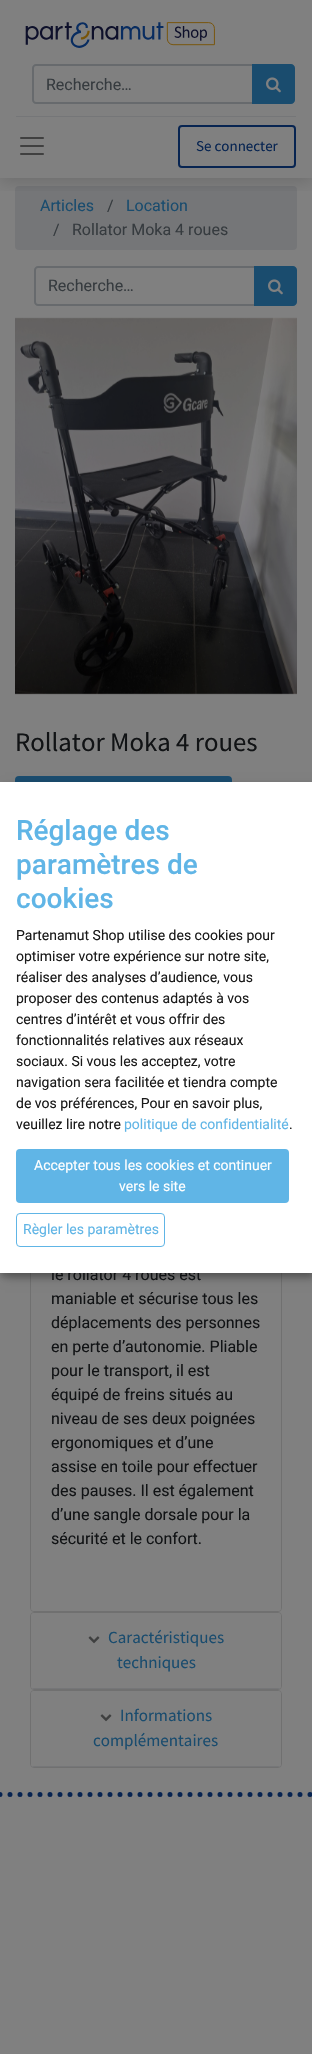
void draw(SkCanvas* canvas) {
  SkPaint paint;
  paint.setAntiAlias(true);
  auto face = [&](const char* family, int weight, float size, bool italic = false) {
    SkFontStyle style(weight, SkFontStyle::kNormal_Width,
      italic ? SkFontStyle::kItalic_Slant : SkFontStyle::kUpright_Slant);
    SkFont result(fontMgr->matchFamilyStyle(family, style), size);
    result.setSubpixel(true);
    return result;
  };
  auto paste = [&](const char* path, float x, float y, float w, float h) {
    auto image = SkImages::DeferredFromEncodedData(SkData::MakeFromFileName(path));
    canvas->drawImageRect(image, SkRect::MakeXYWH(x, y, w, h), SkSamplingOptions());
  };
  auto shape = [&](const char* data, bool evenOdd = false) {
    SkPath result = *SkParsePath::FromSVGString(data);
    if (evenOdd) result.setFillType(SkPathFillType::kEvenOdd);
    return result;
  };
  canvas->clear(0xff808080);
  paint.setColor(0xff757678);
  canvas->drawRoundRect(SkRect::MakeXYWH(15, 186, 282, 64), 4, 4, paint);
  canvas->save();
  canvas->clipRect(SkRect::MakeXYWH(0, 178, 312, 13));
  paint.setColor(0x26000000);
  paint.setMaskFilter(SkMaskFilter::MakeBlur(kNormal_SkBlurStyle, 8));
  canvas->drawRect(SkRect::MakeXYWH(0, 4, 312, 178), paint);
  paint.setMaskFilter(nullptr);
  canvas->restore();
  paste("img/1.png", 25, 22, 190, 26);
  paint.setStroke(true);
  paint.setStrokeWidth(2);
  paint.setColor(0xff676a6d);
  canvas->drawPath(shape("M36 65H253V103H36C34.5 103 33 101.5 33 100V68C33 66.5 34.5 65 36 65Z"), paint);
  paint.setStroke(false);
  paint.setColor(0xff1a4c6e);
  canvas->drawPath(shape("M253 65H291C292.5 65 294 66.5 294 68V100C294 101.5 292.5 103 291 103H253Z"), paint);
  paint.setStroke(true);
  canvas->drawPath(shape("M253 65H291C292.5 65 294 66.5 294 68V100C294 101.5 292.5 103 291 103H253Z"), paint);
  paste("img/2.png", 266, 77, 15, 16);
  paint.setStroke(false);
  paint.setColor(0xff757678);
  canvas->drawRect(SkRect::MakeXYWH(16, 116, 280, 1), paint);
  paste("img/3.png", 20, 137, 24, 18);
  paint.setStroke(true);
  paint.setColor(0xff072451);
  canvas->drawRoundRect(SkRect::MakeXYWH(179, 126, 116, 41), 3, 3, paint);
  paint.setColor(0xff676a6d);
  canvas->drawPath(shape("M38 267H255V305H38C36.5 305 35 303.5 35 302V270C35 268.5 36.5 267 38 267Z"), paint);
  paint.setStroke(false);
  paint.setColor(0xff1a4c6e);
  canvas->drawPath(shape("M255 267H293C294.5 267 296 268.5 296 270V302C296 303.5 294.5 305 293 305H255Z"), paint);
  paint.setStroke(true);
  canvas->drawPath(shape("M255 267H293C294.5 267 296 268.5 296 270V302C296 303.5 294.5 305 293 305H255Z"), paint);
  paste("img/2.png", 268, 279, 15, 16);
  paste("img/4.png", 15, 317, 282, 378);
  paint.setStroke(false);
  canvas->drawRoundRect(SkRect::MakeXYWH(16, 777, 215, 38), 3, 3, paint);
  paint.setStroke(true);
  canvas->drawRoundRect(SkRect::MakeXYWH(16, 777, 215, 38), 3, 3, paint);
  paint.setStrokeWidth(1);
  paint.setColor(0xff707070);
  canvas->drawRoundRect(SkRect::MakeXYWH(30.5f, 1142.5f, 251, 469), 3.5f, 3.5f, paint);
  paint.setStroke(false);
  paint.setColor(0xe6808080);
  canvas->drawRoundRect(SkRect::MakeXYWH(31, 1219, 250, 392), 3, 3, paint);
  paint.setStroke(true);
  paint.setColor(0xff707070);
  canvas->drawRoundRect(SkRect::MakeXYWH(30.5f, 1612.5f, 251, 77), 3.5f, 3.5f, paint);
  paint.setStroke(false);
  paint.setColor(0xff808080);
  canvas->drawRoundRect(SkRect::MakeXYWH(31, 1613, 250, 76), 3, 3, paint);
  canvas->save();
  canvas->clipPath(shape("M34 1613H278C279.5 1613 281 1614.5 281 1616V1686C281 1687.5 279.5 1689 278 1689H34C32.5 1689 31 1687.5 31 1686V1616C31 1614.5 32.5 1613 34 1613Z"), true);
  paint.setColor(0xff757678);
  canvas->drawRect(SkRect::MakeXYWH(31, 1688, 250, 1), paint);
  canvas->restore();
  paste("img/5.png", 88, 1636, 12, 8);
  paint.setStroke(true);
  paint.setColor(0xff707070);
  canvas->drawRoundRect(SkRect::MakeXYWH(30.5f, 1690.5f, 251, 77), 3.5f, 3.5f, paint);
  paint.setStroke(false);
  paint.setColor(0xff808080);
  canvas->drawRoundRect(SkRect::MakeXYWH(31, 1691, 250, 76), 3, 3, paint);
  canvas->save();
  canvas->clipPath(shape("M34 1691H278C279.5 1691 281 1692.5 281 1694V1764C281 1765.5 279.5 1767 278 1767H34C32.5 1767 31 1765.5 31 1764V1694C31 1692.5 32.5 1691 34 1691Z"), true);
  paint.setColor(0xff757678);
  canvas->drawRect(SkRect::MakeXYWH(31, 1766, 250, 1), paint);
  canvas->restore();
  paste("img/5.png", 100, 1714, 12, 8);
  paint.setStroke(true);
  paint.setStrokeWidth(5);
  paint.setStrokeCap(SkPaint::kRound_Cap);
  paint.setColor(0xff072451);
  paint.setPathEffect(SkDashPathEffect::Make({{0, 10}}, 0));
  canvas->drawPath(shape("M0 1794.5H312"), paint);
  paint.setPathEffect(nullptr);
  paint.setStroke(false);
  paint.setColor(0x30000000);
  paint.setMaskFilter(SkMaskFilter::MakeBlur(kNormal_SkBlurStyle, 5));
  canvas->drawRect(SkRect::MakeXYWH(5, 787, 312, 491), paint);
  paint.setMaskFilter(nullptr);
  paint.setColor(0x33000000);
  paint.setMaskFilter(SkMaskFilter::MakeBlur(kNormal_SkBlurStyle, 3));
  canvas->drawRect(SkRect::MakeXYWH(0, 786, 312, 491), paint);
  paint.setMaskFilter(nullptr);
  auto f0 = face("Roboto", 400, 16);
  paint.setColor(0xff363b3f);
  canvas->drawString("Recherche…", 46, 90, f0, paint);
  auto f1 = face("Source Sans Pro", 400, 15);
  paint.setColor(0xff072451);
  canvas->drawString("Se connecter", 196, 151, f1, paint);
  paint.setColor(0xff1a4c6e);
  canvas->drawString("Articles", 40, 211, f0, paint);
  paint.setColor(0xff363b3f);
  canvas->drawString("/", 107, 211, f0, paint);
  paint.setColor(0xff1a4c6e);
  canvas->drawString("Location", 126, 211, f0, paint);
  paint.setColor(0xff363b3f);
  {
    const struct { const char* s; float x, y; } items[] = {
      {"/", 53, 235},
      {"Rollator Moka 4 roues", 72, 235},
      {"Recherche…", 48, 291},
    };
    for (auto [s, x, y] : items) {
      canvas->drawString(s, x, y, f0, paint);
    }
  }
  auto f2 = face("Source Sans Pro", 400, 26.75f);
  paint.setColor(0xff111315);
  canvas->drawString("Rollator Moka 4 roues", 15, 751, f2, paint);
  {
    const struct { const char* s; float x, y; } items[] = {
      {"le rollator 4 roues est", 51, 1280},
      {"maniable et sécurise tous les", 51, 1304},
      {"déplacements des personnes", 51, 1328},
      {"en perte d’autonomie. Pliable", 51, 1352},
      {"pour le transport, il est", 51, 1376},
      {"équipé de freins situés au", 51, 1400},
      {"niveau de ses deux poignées", 51, 1424},
      {"ergonomiques et d’une", 51, 1448},
      {"assise en toile pour effectuer", 51, 1472},
      {"des pauses. Il est également", 51, 1496},
      {"d’une sangle dorsale pour la", 51, 1520},
      {"sécurité et le confort.", 51, 1544},
    };
    for (auto [s, x, y] : items) {
      canvas->drawString(s, x, y, f0, paint);
    }
  }
  auto f3 = face("Source Sans Pro", 400, 17);
  paint.setColor(0xff1a4c6e);
  {
    const struct { const char* s; float x, y; } items[] = {
      {"Caractéristiques", 108, 1643},
      {"techniques", 117, 1668},
      {"Informations", 120, 1721},
      {"complémentaires", 93, 1746},
    };
    for (auto [s, x, y] : items) {
      canvas->drawString(s, x, y, f3, paint);
    }
  }
  paint.setColor(0xffffffff);
  canvas->drawRect(SkRect::MakeXYWH(0, 782, 312, 491), paint);
  auto f4 = face("Roboto", 500, 28);
  paint.setColor(0xff60b5e6);
  {
    const struct { const char* s; float x, y; } items[] = {
      {"Réglage des", 16, 840},
      {"paramètres de", 16, 874},
      {"cookies", 16, 908},
    };
    for (auto [s, x, y] : items) {
      canvas->drawString(s, x, y, f4, paint);
    }
  }
  auto f5 = face("Roboto", 400, 14);
  paint.setColor(0xff1a1a1a);
  {
    const struct { const char* s; float x, y; } items[] = {
      {"Partenamut Shop utilise des cookies pour", 16, 940},
      {"optimiser votre expérience sur notre site,", 16, 961},
      {"réaliser des analyses d’audience, vous", 16, 982},
      {"proposer des contenus adaptés à vos", 16, 1003},
      {"centres d’intérêt et vous offrir des", 16, 1024},
      {"fonctionnalités relatives aux réseaux", 16, 1045},
      {"sociaux. Si vous les acceptez, votre", 16, 1066},
      {"navigation sera facilitée et tiendra compte", 16, 1087},
      {"de vos préférences, Pour en savoir plus,", 16, 1108},
      {"veuillez lire notre", 16, 1129},
    };
    for (auto [s, x, y] : items) {
      canvas->drawString(s, x, y, f5, paint);
    }
  }
  paint.setColor(0xff60b5e6);
  canvas->drawString("politique de confidentialité", 124, 1129, f5, paint);
  paint.setColor(0xff1a1a1a);
  canvas->drawString(".", 289, 1129, f5, paint);
  paint.setColor(0xff60b5e6);
  canvas->drawRoundRect(SkRect::MakeXYWH(16, 1149, 273, 54), 4, 4, paint);
  paint.setColor(0xffffffff);
  canvas->drawString("Accepter tous les cookies et continuer", 34, 1170, f5, paint);
  canvas->drawString("vers le site", 119, 1191, f5, paint);
  paint.setStroke(true);
  paint.setStrokeWidth(1);
  paint.setStrokeCap(SkPaint::kButt_Cap);
  paint.setColor(0xff60b5e6);
  canvas->drawRoundRect(SkRect::MakeXYWH(16.5f, 1213.5f, 148, 33), 3.5f, 3.5f, paint);
  paint.setStroke(false);
  canvas->drawString("Règler les paramètres", 23, 1234, f5, paint);
}
